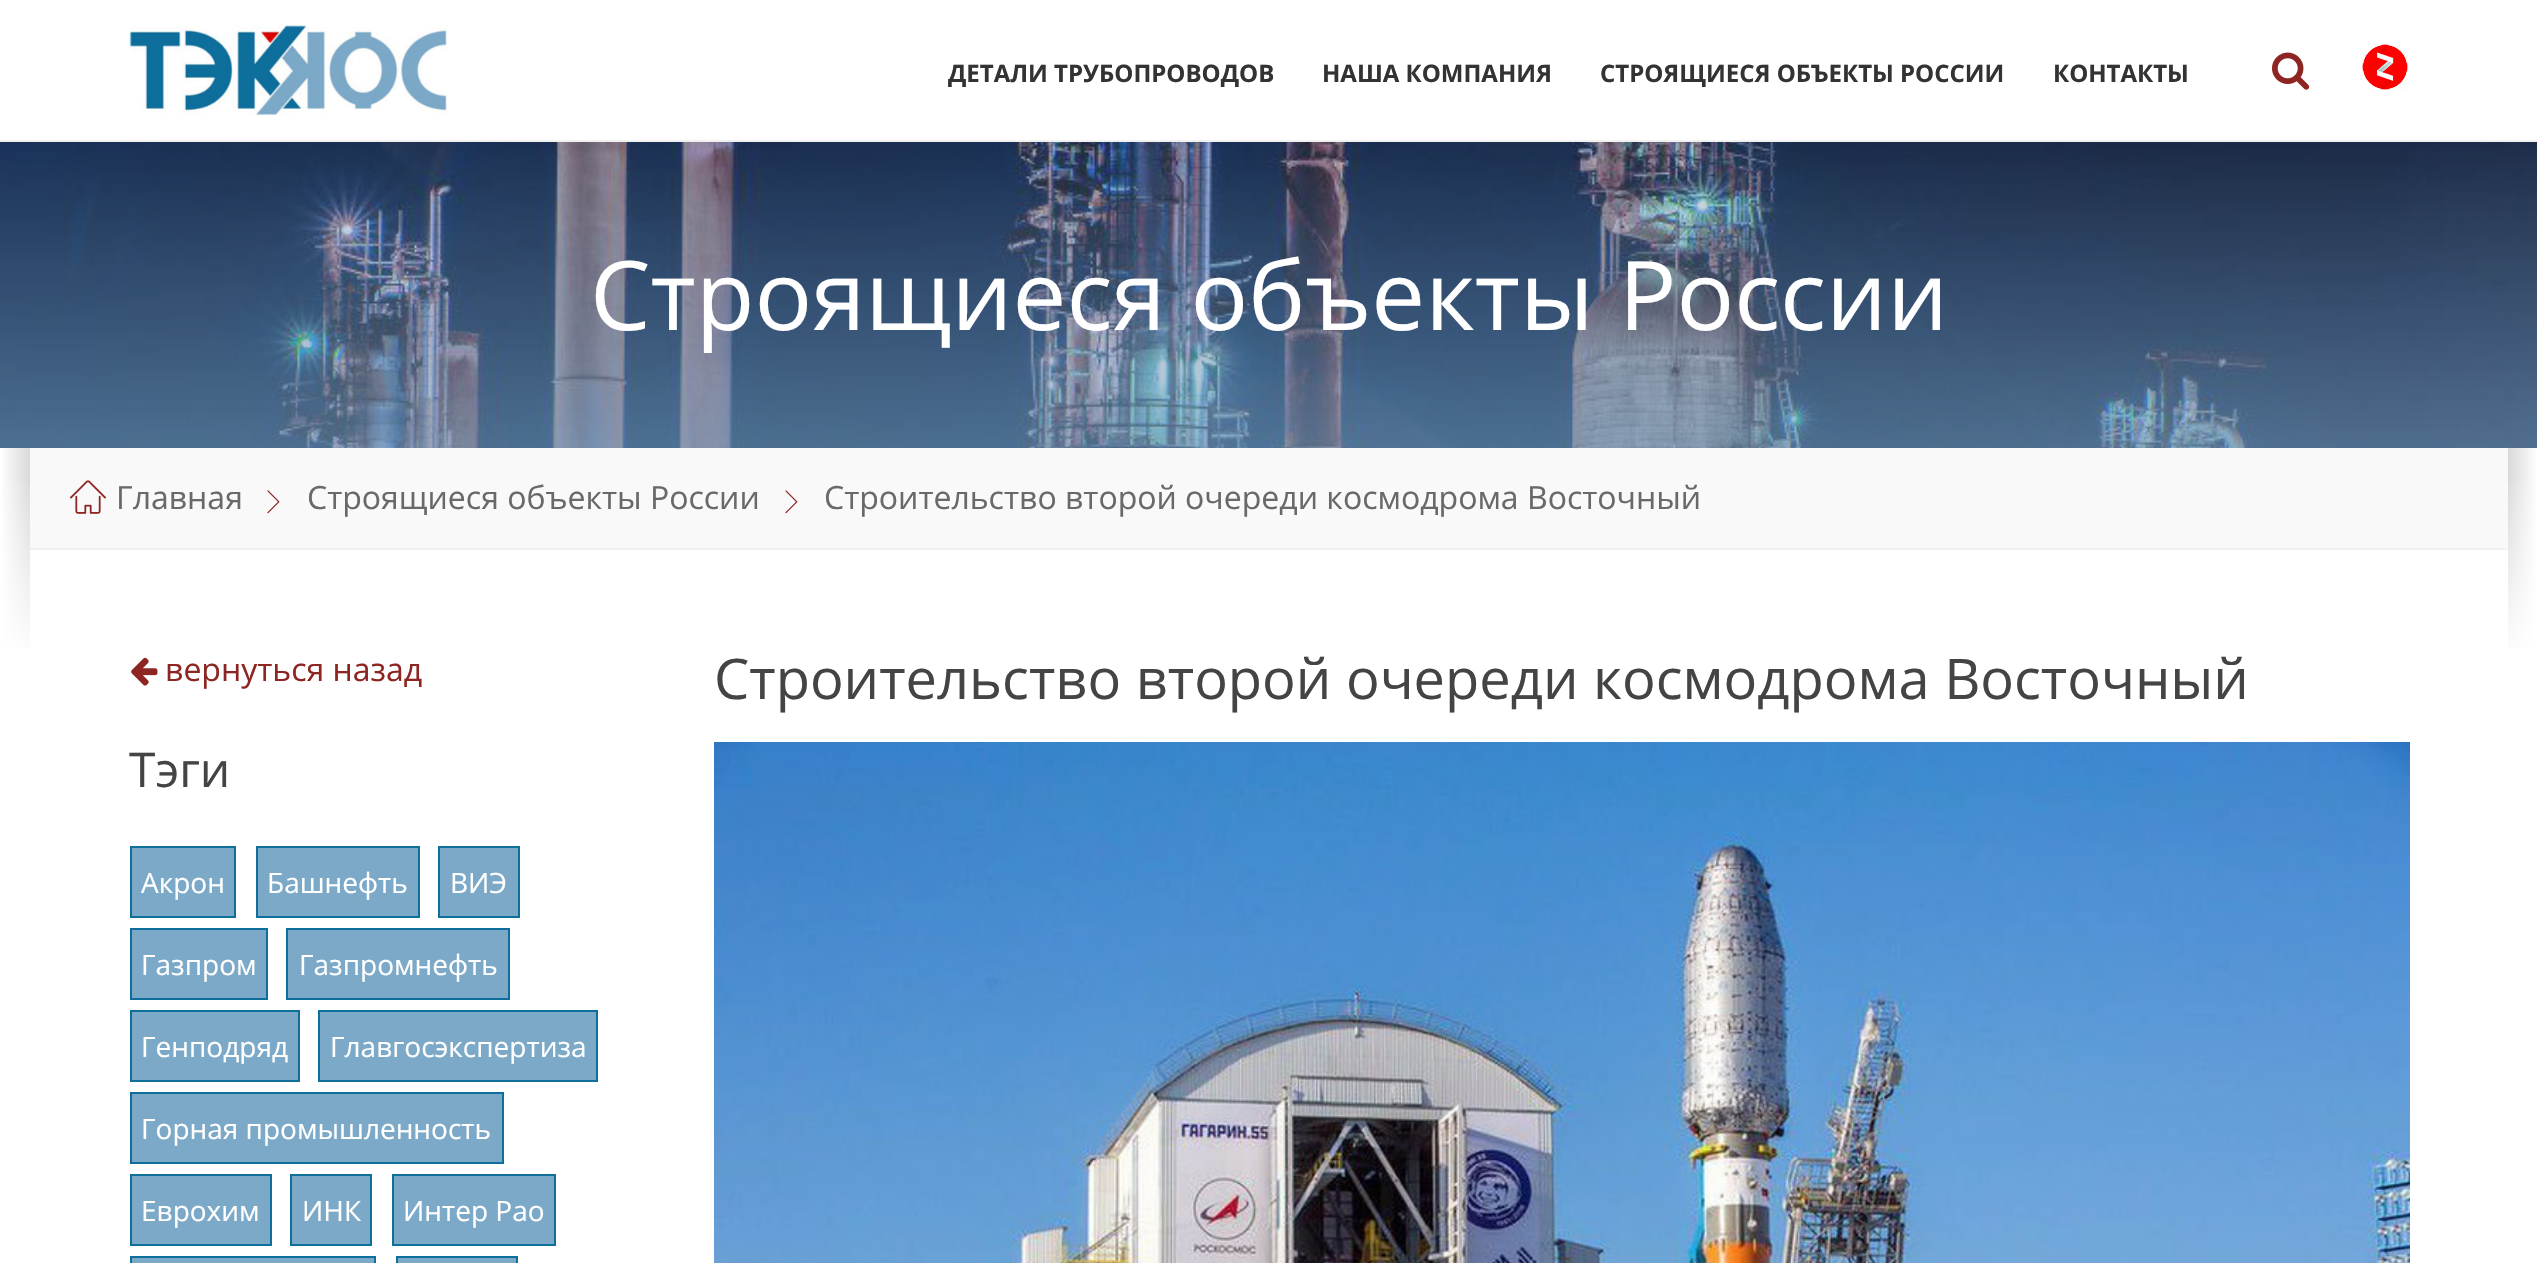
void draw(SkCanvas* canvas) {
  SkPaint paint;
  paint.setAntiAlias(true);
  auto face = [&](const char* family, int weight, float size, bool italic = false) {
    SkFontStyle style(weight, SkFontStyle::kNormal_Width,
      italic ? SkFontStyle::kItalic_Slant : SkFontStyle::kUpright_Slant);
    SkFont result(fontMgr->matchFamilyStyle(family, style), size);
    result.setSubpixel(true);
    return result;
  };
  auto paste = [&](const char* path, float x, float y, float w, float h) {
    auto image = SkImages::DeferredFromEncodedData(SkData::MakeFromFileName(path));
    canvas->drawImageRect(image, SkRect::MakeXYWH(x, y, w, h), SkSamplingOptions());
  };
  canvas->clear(0xffffffff);
  paint.setColor(0xfff1f1f1);
  canvas->drawRect(SkRect::MakeXYWH(0, 140, 2537, 2), paint);
  paste("img/1.png", 129, 25, 319, 91);
  paste("img/2.png", 2272, 52, 38, 38);
  paste("img/3.png", 2360, 42, 48, 48);
  paste("img/4.png", 0, 142, 2537, 306);
  {
    const SkColor colors[] = {0xffffffff, 0xffd9d9d9};
    const float stops[] = {0, 1};
    const SkPoint ends[] = {{0, 548}, {30, 548}};
    paint.setShader(SkGradientShader::MakeLinear(ends, colors, stops, 2, SkTileMode::kClamp));
    paint.setAlpha(255);
  }
  canvas->drawRect(SkRect::MakeXYWH(2, 448, 28, 200), paint);
  {
    const SkColor colors[] = {0x00ffffff, 0xffffffff};
    const float stops[] = {0, 1};
    const SkPoint ends[] = {{15, 468}, {15, 668}};
    paint.setShader(SkGradientShader::MakeLinear(ends, colors, stops, 2, SkTileMode::kClamp));
    paint.setAlpha(255);
  }
  canvas->drawRect(SkRect::MakeXYWH(2, 482, 28, 166), paint);
  paint.setShader(nullptr);
  paint.setColor(0xfff9f9f9);
  canvas->drawRect(SkRect::MakeXYWH(30, 448, 2478, 100), paint);
  paint.setColor(0xfff1f1f1);
  canvas->drawRect(SkRect::MakeXYWH(30, 548, 2478, 2), paint);
  paste("img/5.png", 70, 480, 36, 34);
  paste("img/6.png", 267, 490, 13, 24);
  paste("img/6.png", 785, 490, 13, 24);
  {
    const SkColor colors[] = {0xffd9d9d9, 0xffffffff};
    const float stops[] = {0, 1};
    const SkPoint ends[] = {{2508, 548}, {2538, 548}};
    paint.setShader(SkGradientShader::MakeLinear(ends, colors, stops, 2, SkTileMode::kClamp));
    paint.setAlpha(255);
  }
  canvas->drawRect(SkRect::MakeXYWH(2508, 448, 28, 200), paint);
  {
    const SkColor colors[] = {0x00ffffff, 0xffffffff};
    const float stops[] = {0, 1};
    const SkPoint ends[] = {{2523, 468}, {2523, 668}};
    paint.setShader(SkGradientShader::MakeLinear(ends, colors, stops, 2, SkTileMode::kClamp));
    paint.setAlpha(255);
  }
  canvas->drawRect(SkRect::MakeXYWH(2508, 482, 28, 166), paint);
  paste("img/7.png", 131, 657, 27, 29);
  paint.setShader(nullptr);
  paint.setColor(0xff7ca9c8);
  canvas->drawRect(SkRect::MakeXYWH(131, 847, 104, 70), paint);
  paint.setStroke(true);
  paint.setStrokeWidth(2);
  paint.setColor(0xff0e6f9c);
  canvas->drawRect(SkRect::MakeXYWH(131, 847, 104, 70), paint);
  paint.setStroke(false);
  paint.setColor(0xff7ca9c8);
  canvas->drawRect(SkRect::MakeXYWH(257, 847, 162, 70), paint);
  paint.setStroke(true);
  paint.setColor(0xff0e6f9c);
  canvas->drawRect(SkRect::MakeXYWH(257, 847, 162, 70), paint);
  paint.setStroke(false);
  paint.setColor(0xff7ca9c8);
  canvas->drawRect(SkRect::MakeXYWH(439, 847, 80, 70), paint);
  paint.setStroke(true);
  paint.setColor(0xff0e6f9c);
  canvas->drawRect(SkRect::MakeXYWH(439, 847, 80, 70), paint);
  paint.setStroke(false);
  paint.setColor(0xff7ca9c8);
  canvas->drawRect(SkRect::MakeXYWH(131, 929, 136, 70), paint);
  paint.setStroke(true);
  paint.setColor(0xff0e6f9c);
  canvas->drawRect(SkRect::MakeXYWH(131, 929, 136, 70), paint);
  paint.setStroke(false);
  paint.setColor(0xff7ca9c8);
  canvas->drawRect(SkRect::MakeXYWH(287, 929, 222, 70), paint);
  paint.setStroke(true);
  paint.setColor(0xff0e6f9c);
  canvas->drawRect(SkRect::MakeXYWH(287, 929, 222, 70), paint);
  paint.setStroke(false);
  paint.setColor(0xff7ca9c8);
  canvas->drawRect(SkRect::MakeXYWH(131, 1011, 168, 70), paint);
  paint.setStroke(true);
  paint.setColor(0xff0e6f9c);
  canvas->drawRect(SkRect::MakeXYWH(131, 1011, 168, 70), paint);
  paint.setStroke(false);
  paint.setColor(0xff7ca9c8);
  canvas->drawRect(SkRect::MakeXYWH(319, 1011, 278, 70), paint);
  paint.setStroke(true);
  paint.setColor(0xff0e6f9c);
  canvas->drawRect(SkRect::MakeXYWH(319, 1011, 278, 70), paint);
  paint.setStroke(false);
  paint.setColor(0xff7ca9c8);
  canvas->drawRect(SkRect::MakeXYWH(131, 1093, 372, 70), paint);
  paint.setStroke(true);
  paint.setColor(0xff0e6f9c);
  canvas->drawRect(SkRect::MakeXYWH(131, 1093, 372, 70), paint);
  paint.setStroke(false);
  paint.setColor(0xff7ca9c8);
  canvas->drawRect(SkRect::MakeXYWH(131, 1175, 140, 70), paint);
  paint.setStroke(true);
  paint.setColor(0xff0e6f9c);
  canvas->drawRect(SkRect::MakeXYWH(131, 1175, 140, 70), paint);
  paint.setStroke(false);
  paint.setColor(0xff7ca9c8);
  canvas->drawRect(SkRect::MakeXYWH(291, 1175, 80, 70), paint);
  paint.setStroke(true);
  paint.setColor(0xff0e6f9c);
  canvas->drawRect(SkRect::MakeXYWH(291, 1175, 80, 70), paint);
  paint.setStroke(false);
  paint.setColor(0xff7ca9c8);
  canvas->drawRect(SkRect::MakeXYWH(393, 1175, 162, 70), paint);
  paint.setStroke(true);
  paint.setColor(0xff0e6f9c);
  canvas->drawRect(SkRect::MakeXYWH(393, 1175, 162, 70), paint);
  paint.setStroke(false);
  paint.setColor(0xff7ca9c8);
  canvas->drawRect(SkRect::MakeXYWH(131, 1257, 244, 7), paint);
  paint.setStroke(true);
  paint.setColor(0xff0e6f9c);
  canvas->drawRect(SkRect::MakeXYWH(131, 1257, 244, 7), paint);
  paint.setStroke(false);
  paint.setColor(0xff7ca9c8);
  canvas->drawRect(SkRect::MakeXYWH(397, 1257, 120, 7), paint);
  paint.setStroke(true);
  paint.setColor(0xff0e6f9c);
  canvas->drawRect(SkRect::MakeXYWH(397, 1257, 120, 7), paint);
  paste("img/8.png", 714, 742, 1696, 521);
  auto f0 = face("Open Sans", 700, 24);
  paint.setStroke(false);
  paint.setColor(0xff333333);
  {
    const struct { const char* s; float x, y; } items[] = {
      {"ДЕТАЛИ ТРУБОПРОВОДОВ", 948, 82},
      {"НАША КОМПАНИЯ", 1322, 82},
      {"СТРОЯЩИЕСЯ ОБЪЕКТЫ РОССИИ", 1600, 82},
      {"КОНТАКТЫ", 2053, 82},
    };
    for (auto [s, x, y] : items) {
      canvas->drawString(s, x, y, f0, paint);
    }
  }
  auto f1 = face("Open Sans", 400, 96);
  paint.setColor(0xffffffff);
  canvas->drawString("Строящиеся объекты России", 590, 330, f1, paint);
  auto f2 = face("Open Sans", 400, 32);
  paint.setColor(0xff696969);
  {
    const struct { const char* s; float x, y; } items[] = {
      {"Главная", 116, 509},
      {"Строящиеся объекты России", 307, 509},
      {"Строительство второй очереди космодрома Восточный", 824, 509},
    };
    for (auto [s, x, y] : items) {
      canvas->drawString(s, x, y, f2, paint);
    }
  }
  paint.setColor(0xff8d2522);
  canvas->drawString("вернуться назад", 165, 681, f2, paint);
  auto f3 = face("Open Sans", 400, 48);
  paint.setColor(0xff444444);
  canvas->drawString("Тэги", 129, 787, f3, paint);
  auto f4 = face("Open Sans", 400, 28);
  paint.setColor(0xffffffff);
  {
    const struct { const char* s; float x, y; } items[] = {
      {"Акрон", 141, 893},
      {"Башнефть", 267, 893},
      {"ВИЭ", 450, 893},
      {"Газпром", 141, 975},
      {"Газпромнефть", 299, 975},
      {"Генподряд", 141, 1057},
      {"Главгосэкспертиза", 330, 1057},
      {"Горная промышленность", 141, 1139},
      {"Еврохим", 141, 1221},
      {"ИНК", 302, 1221},
      {"Интер Рао", 403, 1221},
    };
    for (auto [s, x, y] : items) {
      canvas->drawString(s, x, y, f4, paint);
    }
  }
  auto f5 = face("Open Sans", 400, 56);
  paint.setColor(0xff444444);
  canvas->drawString("Строительство второй очереди космодрома Восточный", 714, 699, f5, paint);
}
